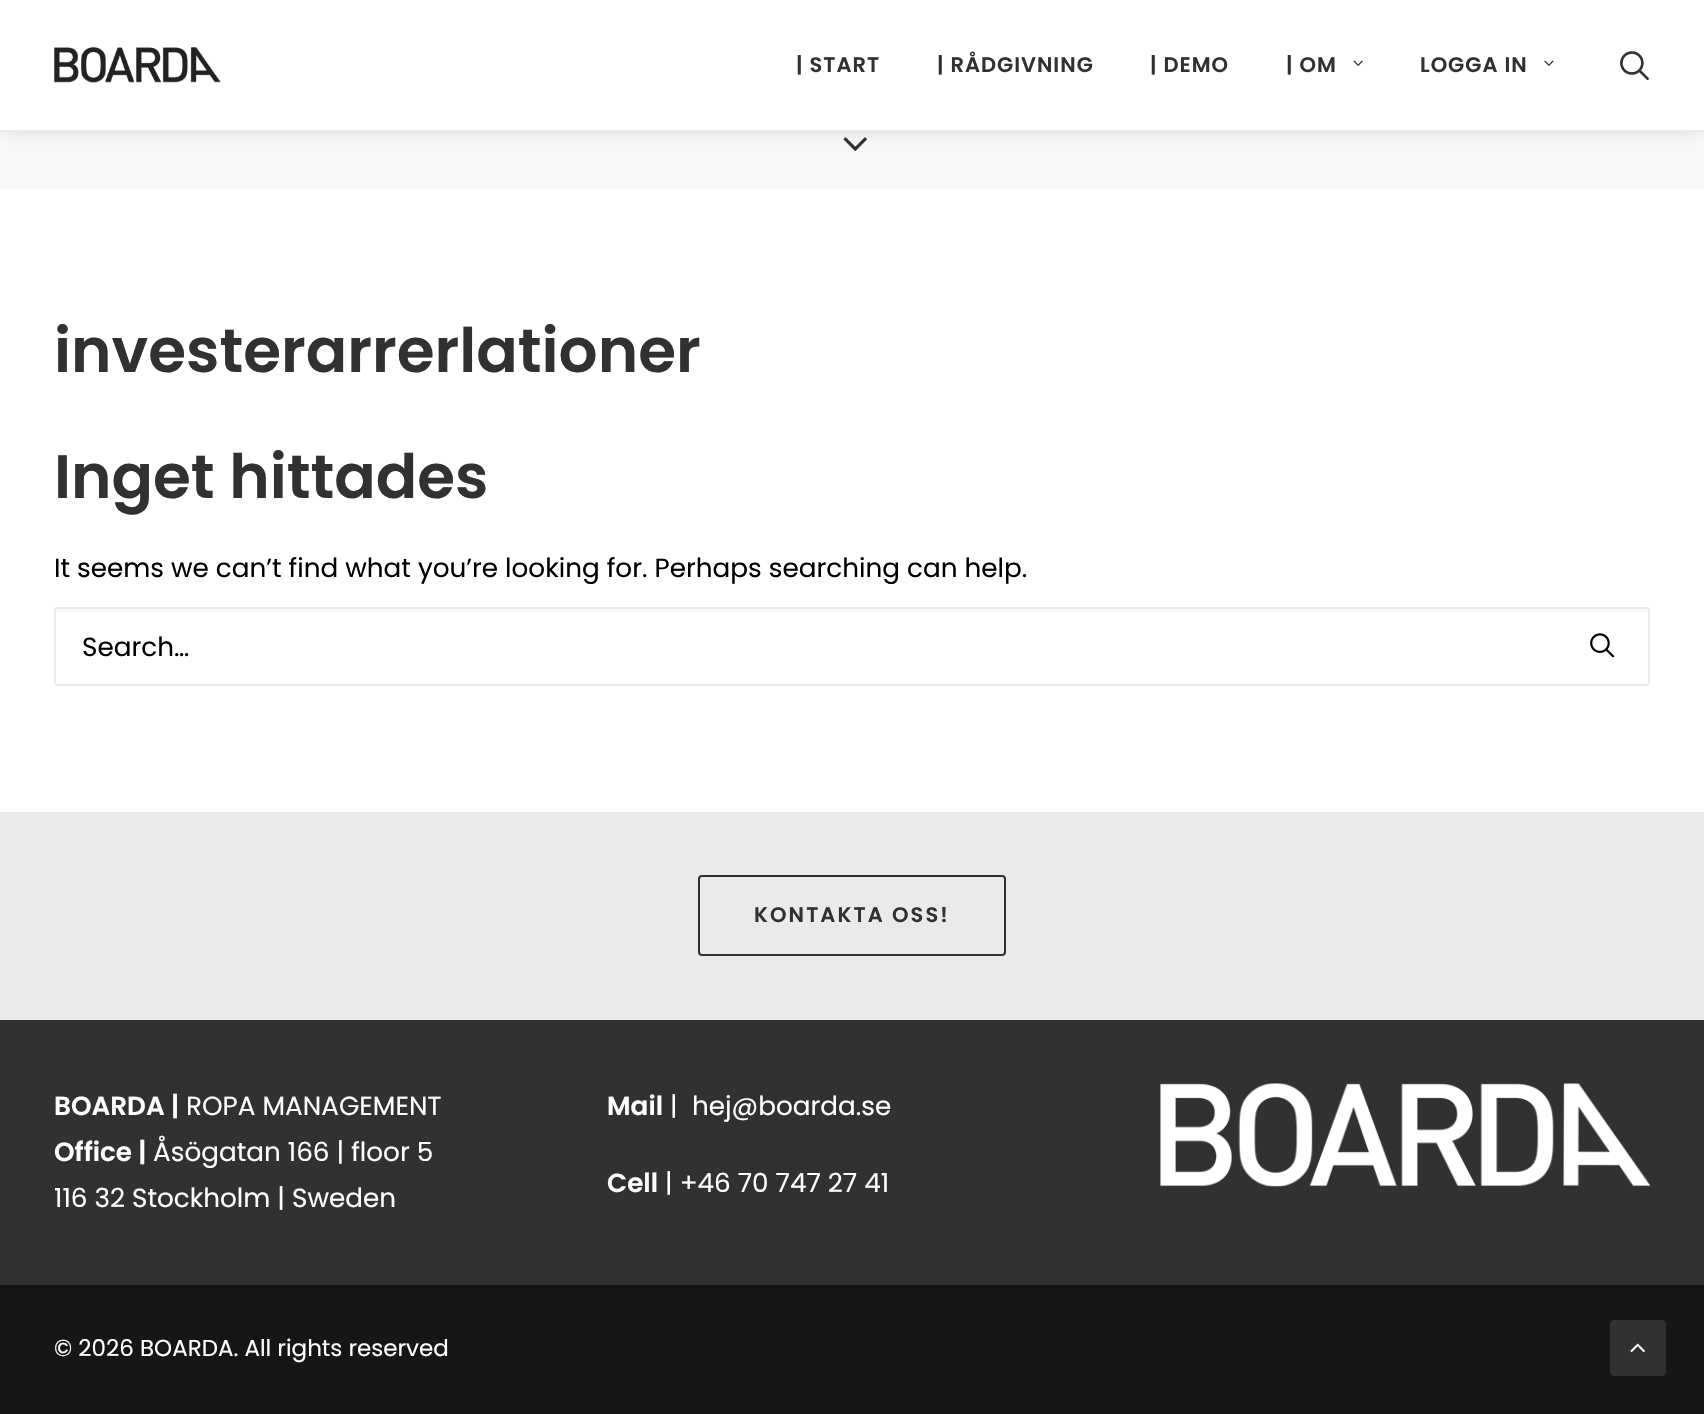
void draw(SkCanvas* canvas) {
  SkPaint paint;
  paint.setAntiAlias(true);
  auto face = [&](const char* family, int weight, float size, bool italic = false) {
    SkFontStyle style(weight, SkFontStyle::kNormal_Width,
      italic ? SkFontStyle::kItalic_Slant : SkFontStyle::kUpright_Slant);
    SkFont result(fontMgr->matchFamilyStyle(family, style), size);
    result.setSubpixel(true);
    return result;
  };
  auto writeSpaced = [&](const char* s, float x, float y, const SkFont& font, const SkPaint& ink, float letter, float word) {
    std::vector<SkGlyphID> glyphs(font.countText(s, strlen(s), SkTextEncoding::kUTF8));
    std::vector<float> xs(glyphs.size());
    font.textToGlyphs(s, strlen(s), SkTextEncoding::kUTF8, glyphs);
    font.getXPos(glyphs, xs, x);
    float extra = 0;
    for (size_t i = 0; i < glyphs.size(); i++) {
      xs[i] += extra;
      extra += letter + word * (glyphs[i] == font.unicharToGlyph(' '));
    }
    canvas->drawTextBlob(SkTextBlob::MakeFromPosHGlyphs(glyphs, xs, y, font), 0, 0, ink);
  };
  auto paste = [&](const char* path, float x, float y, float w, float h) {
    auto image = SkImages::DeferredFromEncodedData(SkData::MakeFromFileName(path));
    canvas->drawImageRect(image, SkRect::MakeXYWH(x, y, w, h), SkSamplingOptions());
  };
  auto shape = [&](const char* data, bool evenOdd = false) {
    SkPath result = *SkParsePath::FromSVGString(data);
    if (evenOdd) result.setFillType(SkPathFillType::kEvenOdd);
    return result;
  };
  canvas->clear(0xfff7f7f7);
  paste("img/5.png", 843, 137, 24, 14);
  paint.setColor(0x99000000);
  paint.setMaskFilter(SkMaskFilter::MakeBlur(kNormal_SkBlurStyle, 9));
  canvas->drawRect(SkRect::MakeXYWH(9, 25, 1687, 96), paint);
  paint.setMaskFilter(nullptr);
  paint.setColor(0xffffffff);
  canvas->drawRect(SkRect::MakeXYWH(0, 0, 1704, 130), paint);
  paint.setColor(0xffeaeaea);
  canvas->drawRect(SkRect::MakeXYWH(0, 130, 1704, 2), paint);
  paste("img/1.png", 54, 47, 167, 36);
  paste("img/2.png", 1353, 60, 10, 6);
  paste("img/3.png", 1544, 60, 10, 6);
  paste("img/4.png", 1620, 51, 29, 29);
  paint.setColor(0xffffffff);
  canvas->drawRect(SkRect::MakeXYWH(0, 189, 1704, 623), paint);
  paint.setColor(0xfff9f9f9);
  canvas->drawPath(shape("M58 612H1647C1648 612 1648 613 1648 614V684C1649 683 1649 683 1649 682V611C1649 610 1648 609 1647 609H58C57 609 56 610 56 611V614C56 613 57 612 58 612Z"), paint);
  paint.setStroke(true);
  paint.setStrokeWidth(2);
  paint.setColor(0xffeaeaea);
  canvas->drawRoundRect(SkRect::MakeXYWH(55, 608, 1594, 77), 3, 3, paint);
  paste("img/6.png", 1590, 633, 25, 25);
  paint.setStroke(false);
  canvas->drawRect(SkRect::MakeXYWH(0, 812, 1704, 208), paint);
  paint.setStroke(true);
  paint.setColor(0xff303133);
  canvas->drawRoundRect(SkRect::MakeXYWH(699, 876, 306, 79), 3, 3, paint);
  paint.setStroke(false);
  canvas->drawRect(SkRect::MakeXYWH(0, 1020, 1704, 265), paint);
  paste("img/7.png", 1160, 1083, 491, 104);
  paint.setColor(0xff141618);
  canvas->drawRect(SkRect::MakeXYWH(0, 1285, 1704, 129), paint);
  paint.setColor(0xff303133);
  canvas->drawRoundRect(SkRect::MakeXYWH(1611, 1321, 54, 54), 3, 3, paint);
  paint.setStroke(true);
  canvas->drawRoundRect(SkRect::MakeXYWH(1611, 1321, 54, 54), 3, 3, paint);
  paste("img/8.png", 1630, 1343, 15, 10);
  auto f0 = face("Poppins", 600, 21);
  paint.setStroke(false);
  {
    const struct { const char* s; float x, y; } items[] = {
      {"| START", 796, 72},
      {"| RÅDGIVNING", 937, 72},
      {"| DEMO", 1150, 72},
      {"| OM", 1286, 72},
      {"LOGGA IN", 1420, 72},
    };
    for (auto [s, x, y] : items) {
      writeSpaced(s, x, y, f0, paint, 1, 0);
    }
  }
  auto f1 = face("Poppins", 600, 61.25f);
  canvas->drawString("investerarrerlationer", 54, 372, f1, paint);
  canvas->drawString("Inget hittades", 54, 498, f1, paint);
  auto f2 = face("Poppins", 400, 26.25f);
  paint.setColor(0xff000000);
  canvas->drawString("It seems we can’t find what you’re looking for. Perhaps searching can help.", 54, 577, f2, paint);
  canvas->drawString("Search…", 82, 656, f2, paint);
  paint.setColor(0xff303133);
  writeSpaced("KONTAKTA OSS!", 754, 922, f0, paint, 2.1f, 0);
  auto f3 = face("Poppins", 600, 26.25f);
  paint.setColor(0xffffffff);
  canvas->drawString("BOARDA |", 54, 1115, f3, paint);
  canvas->drawString("ROPA MANAGEMENT", 186, 1115, f2, paint);
  canvas->drawString("Office |", 54, 1161, f3, paint);
  canvas->drawString("Åsögatan 166 | floor 5", 153, 1161, f2, paint);
  canvas->drawString("116 32 Stockholm | Sweden", 54, 1207, f2, paint);
  canvas->drawString("Mail", 607, 1115, f3, paint);
  canvas->drawString("|", 670, 1115, f2, paint);
  canvas->drawString("hej@boarda.se", 692, 1115, f2, paint);
  canvas->drawString("Cell", 607, 1192, f3, paint);
  canvas->drawString("| +46 70 747 27 41", 665, 1192, f2, paint);
  auto f4 = face("Poppins", 400, 23);
  canvas->drawString("© 2026 BOARDA. All rights reserved", 54, 1356, f4, paint);
}
